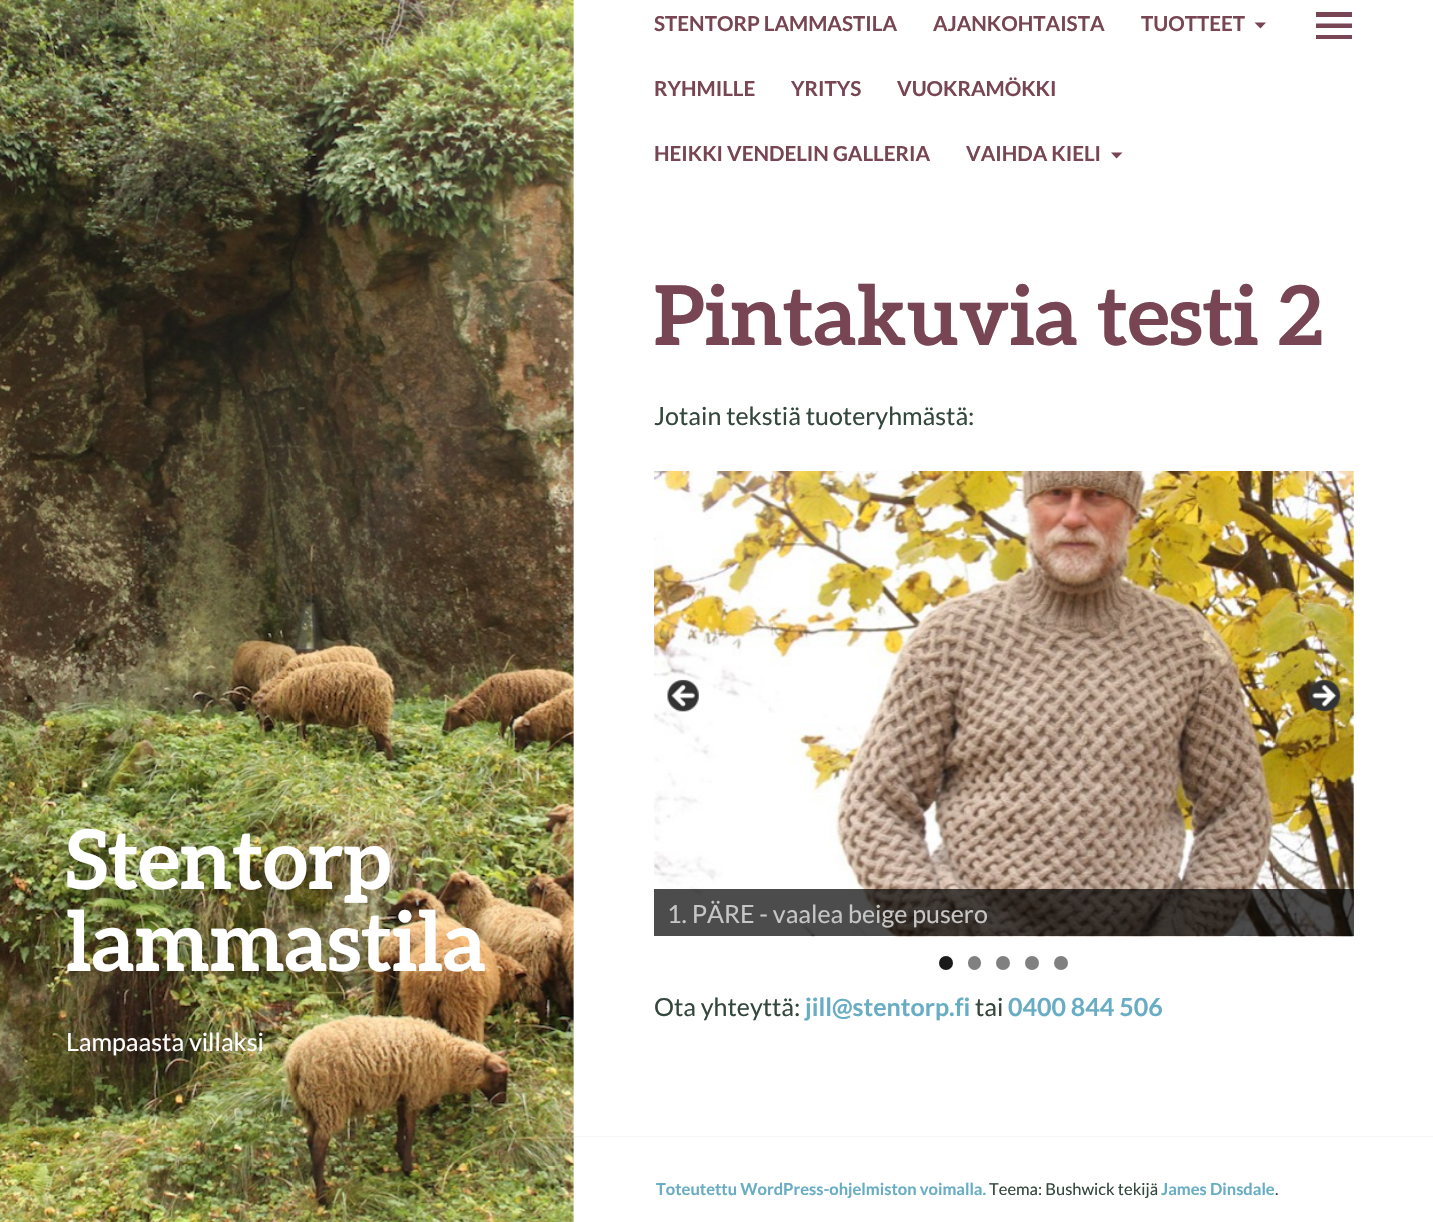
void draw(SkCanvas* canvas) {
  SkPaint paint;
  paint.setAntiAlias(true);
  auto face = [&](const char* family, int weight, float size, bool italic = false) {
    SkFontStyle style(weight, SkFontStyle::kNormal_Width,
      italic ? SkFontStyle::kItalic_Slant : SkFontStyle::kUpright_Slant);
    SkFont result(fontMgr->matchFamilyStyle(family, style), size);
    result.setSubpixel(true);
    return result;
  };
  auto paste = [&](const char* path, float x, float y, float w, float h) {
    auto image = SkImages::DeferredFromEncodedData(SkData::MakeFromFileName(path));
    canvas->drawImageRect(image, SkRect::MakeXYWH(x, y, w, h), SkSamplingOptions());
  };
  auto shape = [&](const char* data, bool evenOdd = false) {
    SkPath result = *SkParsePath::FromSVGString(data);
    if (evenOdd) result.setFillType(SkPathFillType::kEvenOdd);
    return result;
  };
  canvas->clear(0xffffffff);
  paint.setColor(0xfff6f7f6);
  canvas->drawRect(SkRect::MakeXYWH(573, 0, 1, 1222), paint);
  paste("img/1.png", 0, 0, 574, 1222);
  paint.setColor(0xff774553);
  canvas->drawPath(shape("M1254.5 22.5H1266L1260.5 28.5Z"), paint);
  canvas->drawPath(shape("M1111 152.5H1122.5L1116.5 158.5Z"), paint);
  canvas->drawPath(shape("M1316 39V35H1352V39ZM1316 12H1352V17H1316ZM1316 28V23.5H1352V28Z"), paint);
  paste("img/4.png", 654, 471, 700, 466);
  paste("img/2.png", 667, 679, 32, 33);
  paste("img/3.png", 1308, 679, 33, 33);
  paint.setColor(0xb3000000);
  canvas->drawRect(SkRect::MakeXYWH(654, 889, 700, 47), paint);
  paint.setColor(0xff1a1a1a);
  canvas->drawCircle(946, 963, 7, paint);
  paint.setColor(0xff808080);
  canvas->drawRoundRect(SkRect::MakeXYWH(968, 956, 13, 14), 6.5f, 6.5f, paint);
  canvas->drawCircle(1003, 963, 7, paint);
  canvas->drawCircle(1032, 963, 7, paint);
  canvas->drawCircle(1061, 963, 7, paint);
  paint.setColor(0xfff5f6f5);
  canvas->drawRect(SkRect::MakeXYWH(574, 1136, 859, 1), paint);
  auto f0 = face("Aleo", 700, 82.5f);
  paint.setColor(0xffffffff);
  canvas->drawString("Stentorp", 66, 889, f0, paint);
  canvas->drawString("lammastila", 66, 971, f0, paint);
  auto f1 = face("Lato", 400, 25);
  canvas->drawString("Lampaasta villaksi", 66, 1051, f1, paint);
  auto f2 = face("Lato", 700, 20.6f);
  paint.setColor(0xff774553);
  {
    const struct { const char* s; float x, y; } items[] = {
      {"STENTORP LAMMASTILA", 654, 31},
      {"AJANKOHTAISTA", 933, 31},
      {"TUOTTEET", 1141, 31},
      {"RYHMILLE", 654, 96},
      {"YRITYS", 791, 96},
      {"VUOKRAMÖKKI", 897, 96},
      {"HEIKKI VENDELIN GALLERIA", 654, 161},
      {"VAIHDA KIELI", 966, 161},
    };
    for (auto [s, x, y] : items) {
      canvas->drawString(s, x, y, f2, paint);
    }
  }
  canvas->drawString("Pintakuvia testi 2", 654, 345, f0, paint);
  paint.setColor(0xff33473d);
  canvas->drawString("Jotain tekstiä tuoteryhmästä:", 654, 425, f1, paint);
  paint.setColor(0xffc7c6c6);
  canvas->drawString("1. PÄRE - vaalea beige pusero", 667, 923, f1, paint);
  paint.setColor(0xff33473d);
  canvas->drawString("Ota yhteyttä:", 654, 1016, f1, paint);
  auto f3 = face("Lato", 700, 25);
  paint.setColor(0xff68adc3);
  canvas->drawString("jill@stentorp.fi", 805, 1016, f3, paint);
  paint.setColor(0xff33473d);
  canvas->drawString("tai", 975, 1016, f1, paint);
  paint.setColor(0xff68adc3);
  canvas->drawString("0400 844 506", 1008, 1016, f3, paint);
  auto f4 = face("Lato", 700, 16.5f);
  canvas->drawString("Toteutettu WordPress-ohjelmiston voimalla.", 656, 1195, f4, paint);
  auto f5 = face("Lato", 400, 16.5f);
  paint.setColor(0xff33473d);
  canvas->drawString("Teema: Bushwick tekijä", 989, 1195, f5, paint);
  paint.setColor(0xff68adc3);
  canvas->drawString("James Dinsdale", 1161, 1195, f4, paint);
  paint.setColor(0xff33473d);
  canvas->drawString(".", 1275, 1195, f5, paint);
}
